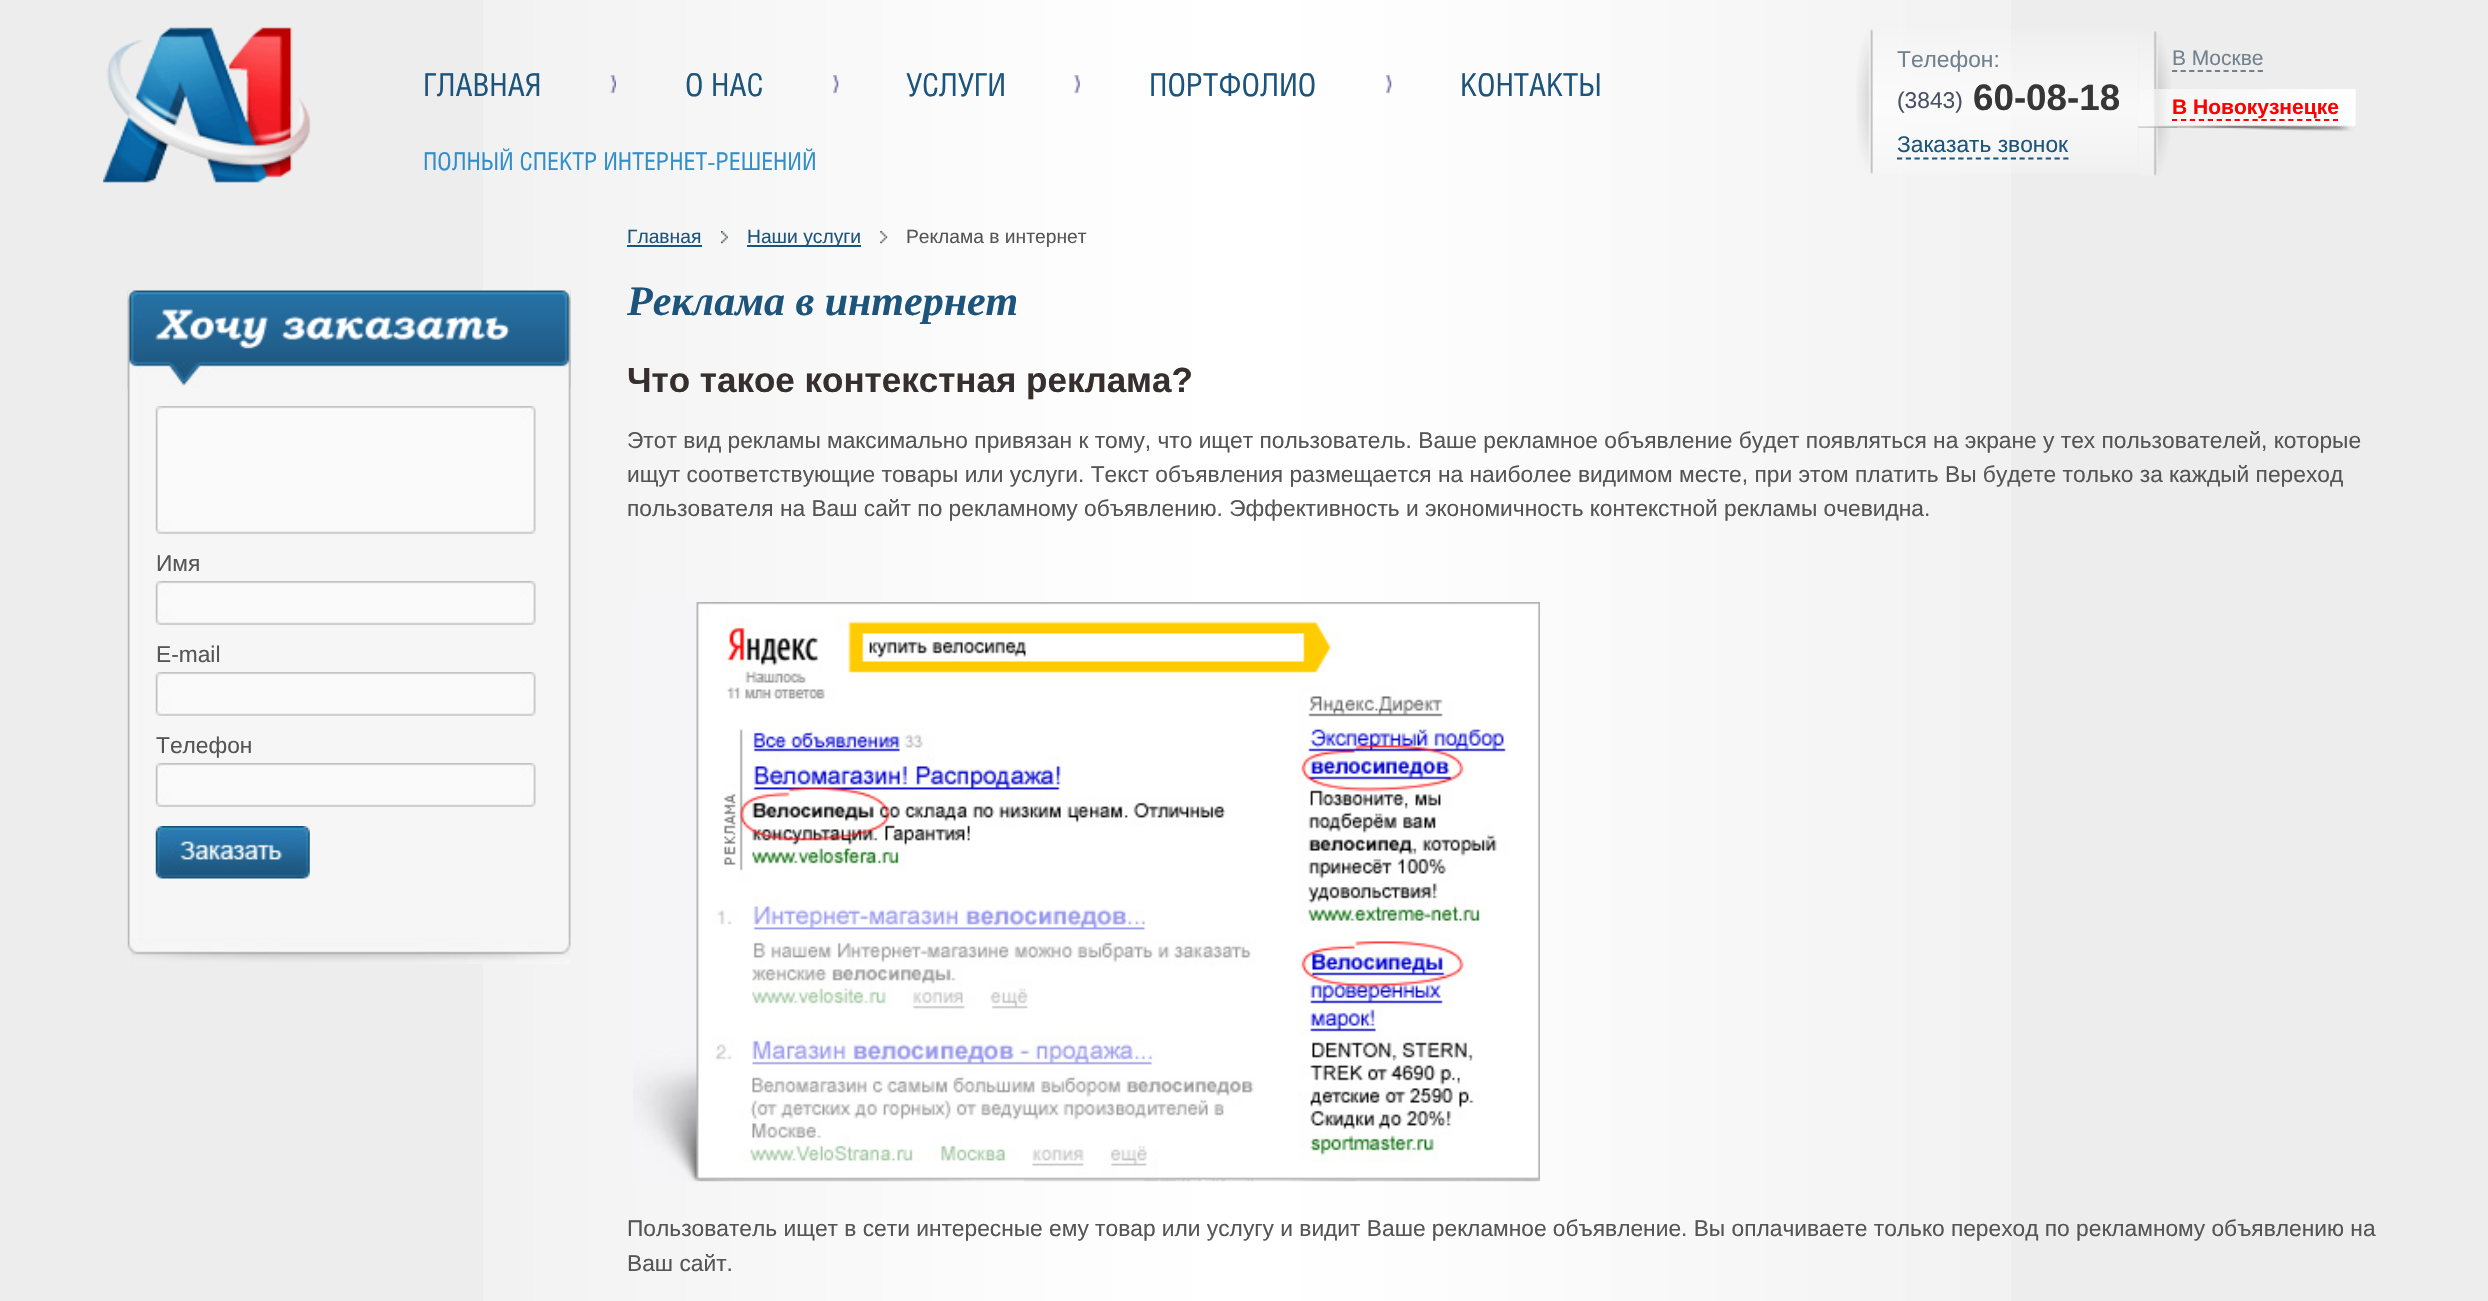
void draw(SkCanvas* canvas) {
  SkPaint paint;
  paint.setAntiAlias(true);
  auto face = [&](const char* family, int weight, float size, bool italic = false) {
    SkFontStyle style(weight, SkFontStyle::kNormal_Width,
      italic ? SkFontStyle::kItalic_Slant : SkFontStyle::kUpright_Slant);
    SkFont result(fontMgr->matchFamilyStyle(family, style), size);
    result.setSubpixel(true);
    return result;
  };
  auto paste = [&](const char* path, float x, float y, float w, float h) {
    auto image = SkImages::DeferredFromEncodedData(SkData::MakeFromFileName(path));
    canvas->drawImageRect(image, SkRect::MakeXYWH(x, y, w, h), SkSamplingOptions());
  };
  auto shape = [&](const char* data, bool evenOdd = false) {
    SkPath result = *SkParsePath::FromSVGString(data);
    if (evenOdd) result.setFillType(SkPathFillType::kEvenOdd);
    return result;
  };
  canvas->clear(0xffededed);
  paste("img/1.png", 483, 0, 1528, 1301);
  paste("img/2.png", 103, 27, 208, 156);
  paste("img/3.png", 610, 75, 6, 19);
  paste("img/4.png", 833, 75, 6, 19);
  paste("img/5.png", 1074, 75, 6, 19);
  paste("img/6.png", 1386, 75, 6, 19);
  paste("img/7.png", 1856, 29, 283, 145);
  paint.setStroke(true);
  paint.setStrokeWidth(1.8f);
  paint.setColor(0xff1d547b);
  paint.setPathEffect(SkDashPathEffect::Make({{5.25f, 3.5f}}, 0));
  canvas->drawPath(shape("M1897 158.5H2068.5"), paint);
  paint.setPathEffect(nullptr);
  paste("img/8.png", 2139, 31, 32, 145);
  paint.setColor(0xff71828e);
  paint.setPathEffect(SkDashPathEffect::Make({{5.25f, 3.32f}}, 0));
  canvas->drawPath(shape("M2172 71H2263"), paint);
  paint.setPathEffect(nullptr);
  paste("img/9.png", 2138, 89, 218, 39);
  paste("img/10.png", 2138, 89, 39, 39);
  paste("img/11.png", 2186, 89, 170, 43);
  paint.setColor(0xffff0000);
  paint.setPathEffect(SkDashPathEffect::Make({{5.25f, 3.69f}}, 0));
  canvas->drawPath(shape("M2172 120H2338"), paint);
  paint.setPathEffect(nullptr);
  paste("img/19.png", 127, 939, 444, 25);
  paste("img/12.png", 127, 290, 444, 650);
  paste("img/13.png", 127, 290, 444, 99);
  paste("img/14.png", 155, 309, 114, 40);
  paste("img/15.png", 281, 316, 229, 24);
  paste("img/16.png", 155, 406, 381, 128);
  paste("img/17.png", 155, 581, 381, 44);
  paste("img/17.png", 155, 672, 381, 44);
  paste("img/17.png", 155, 763, 381, 44);
  paste("img/18.png", 155, 826, 155, 53);
  paint.setStroke(false);
  paint.setColor(0xff1d547b);
  canvas->drawRect(SkRect::MakeXYWH(627, 245, 75, 2), paint);
  paste("img/20.png", 721, 231, 7, 13);
  canvas->drawRect(SkRect::MakeXYWH(747, 245, 114, 2), paint);
  paste("img/21.png", 880, 231, 8, 13);
  paste("img/22.png", 633, 602, 907, 580);
  auto f0 = face("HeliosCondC", 400, 31.5f);
  {
    const struct { const char* s; float x, y; } items[] = {
      {"ГЛАВНАЯ", 423, 96},
      {"О НАС", 685, 96},
      {"УСЛУГИ", 906, 96},
      {"ПОРТФОЛИО", 1149, 96},
      {"КОНТАКТЫ", 1460, 96},
    };
    for (auto [s, x, y] : items) {
      canvas->drawString(s, x, y, f0, paint);
    }
  }
  auto f1 = face("Liberation Sans", 400, 22.75f);
  paint.setColor(0xff71828e);
  canvas->drawString("Телефон:", 1897, 67, f1, paint);
  paint.setColor(0xff485164);
  canvas->drawString("(3843)", 1897, 108, f1, paint);
  auto f2 = face("Liberation Sans", 700, 36.75f);
  paint.setColor(0xff363636);
  canvas->drawString("60-08-18", 1973, 110, f2, paint);
  paint.setColor(0xff1d547b);
  canvas->drawString("Заказать звонок", 1897, 152, f1, paint);
  auto f3 = face("Liberation Sans", 400, 21);
  paint.setColor(0xff71828e);
  canvas->drawString("В Москве", 2172, 65, f3, paint);
  auto f4 = face("Liberation Sans", 700, 21);
  paint.setColor(0xffff0000);
  canvas->drawString("В Новокузнецке", 2172, 114, f4, paint);
  auto f5 = face("HeliosCondC", 400, 24.5f);
  paint.setColor(0xff338dc6);
  canvas->drawString("ПОЛНЫЙ СПЕКТР ИНТЕРНЕТ-РЕШЕНИЙ", 423, 170, f5, paint);
  paint.setColor(0xff555555);
  {
    const struct { const char* s; float x, y; } items[] = {
      {"Имя", 156, 571},
      {"E-mail", 156, 662},
      {"Телефон", 156, 753},
    };
    for (auto [s, x, y] : items) {
      canvas->drawString(s, x, y, f1, paint);
    }
  }
  auto f6 = face("Liberation Sans", 400, 19.25f);
  paint.setColor(0xff1d547b);
  canvas->drawString("Главная", 627, 243, f6, paint);
  canvas->drawString("Наши услуги", 747, 243, f6, paint);
  paint.setColor(0xff555555);
  canvas->drawString("Реклама в интернет", 906, 243, f6, paint);
  auto f7 = face("Liberation Serif", 700, 42, true);
  paint.setColor(0xff1d547b);
  canvas->drawString("Реклама в интернет", 627, 315, f7, paint);
  auto f8 = face("Liberation Sans", 700, 35);
  paint.setColor(0xff362f2d);
  canvas->drawString("Что такое контекстная реклама?", 627, 392, f8, paint);
  paint.setColor(0xff555555);
  {
    const struct { const char* s; float x, y; } items[] = {
      {"Этот вид рекламы максимально привязан к тому, что ищет пользователь. Ваше рекламное объявление будет появляться на экране у тех пользователей, которые", 627, 448},
      {"ищут соответствующие товары или услуги. Текст объявления размещается на наиболее видимом месте, при этом платить Вы будете только за каждый переход", 627, 482},
      {"пользователя на Ваш сайт по рекламному объявлению. Эффективность и экономичность контекстной рекламы очевидна.", 627, 516},
      {"Пользователь ищет в сети интересные ему товар или услугу и видит Ваше рекламное объявление. Вы оплачиваете только переход по рекламному объявлению на", 627, 1236},
      {"Ваш сайт.", 627, 1271},
    };
    for (auto [s, x, y] : items) {
      canvas->drawString(s, x, y, f1, paint);
    }
  }
}
